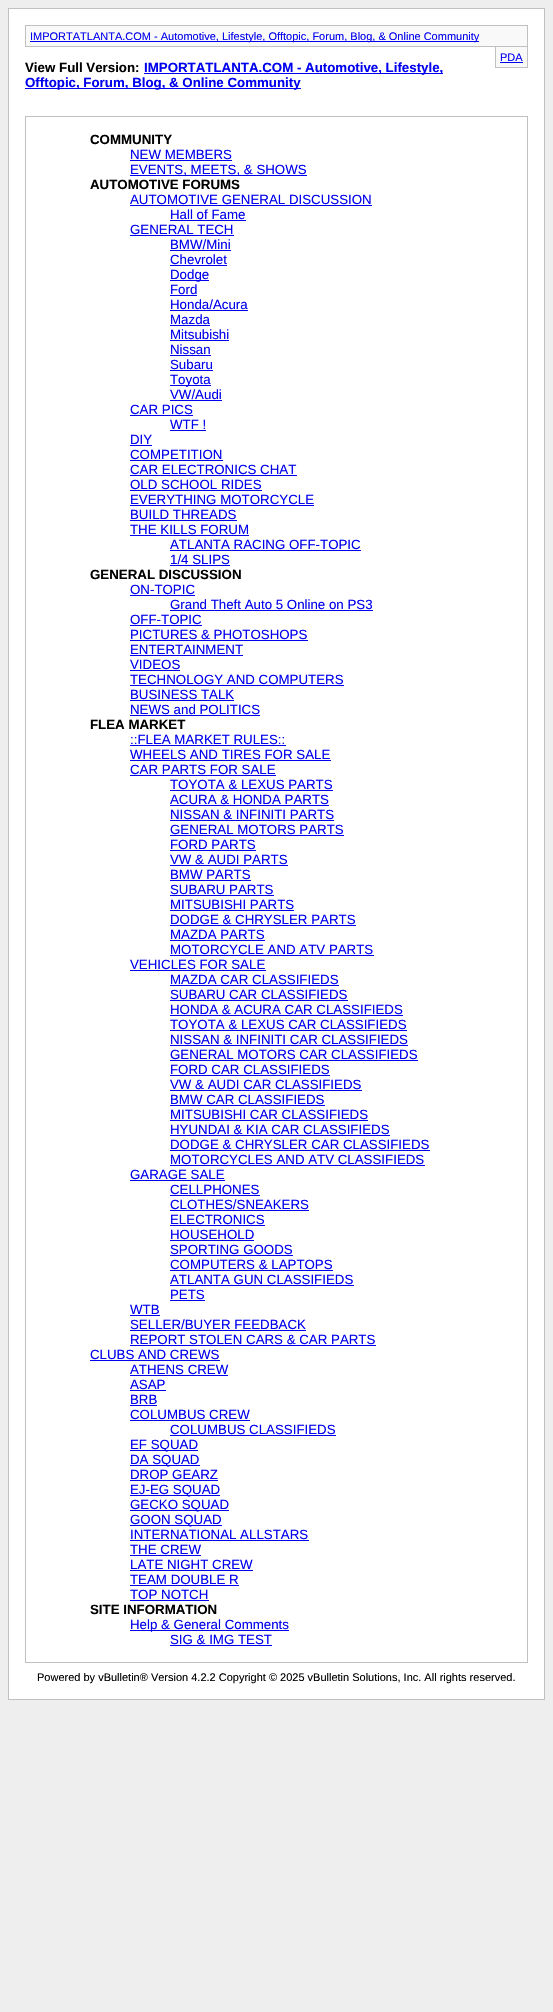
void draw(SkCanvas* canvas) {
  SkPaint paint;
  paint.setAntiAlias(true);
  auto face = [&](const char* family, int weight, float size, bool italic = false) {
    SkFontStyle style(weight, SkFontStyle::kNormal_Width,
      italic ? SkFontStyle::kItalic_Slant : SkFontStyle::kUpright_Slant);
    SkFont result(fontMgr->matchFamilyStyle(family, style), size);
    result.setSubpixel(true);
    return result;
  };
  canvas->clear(0xffeeeeee);
  paint.setColor(0xffffffff);
  canvas->drawRect(SkRect::MakeXYWH(8.5f, 8.5f, 536, 1691), paint);
  paint.setStroke(true);
  paint.setStrokeWidth(1);
  paint.setColor(0xffc0c0c0);
  canvas->drawRect(SkRect::MakeXYWH(8.5f, 8.5f, 536, 1691), paint);
  paint.setStroke(false);
  paint.setColor(0xfff9f9f9);
  canvas->drawRect(SkRect::MakeXYWH(25.5f, 25.5f, 502, 21), paint);
  paint.setStroke(true);
  paint.setColor(0xffc0c0c0);
  canvas->drawRect(SkRect::MakeXYWH(25.5f, 25.5f, 502, 21), paint);
  paint.setStroke(false);
  {
    const struct { float x, y, w, h; SkColor color; } items[] = {
      {30, 41, 449, 1, 0xff0000ee},
      {496, 47, 31, 20, 0xfff9f9f9},
      {527, 47, 1, 21, 0xffc0c0c0},
      {495, 67, 33, 1, 0xffc0c0c0},
      {495, 47, 1, 21, 0xffc0c0c0},
      {500, 62, 23, 1, 0xff0000ee},
      {144, 73, 299, 1, 0xff0000ee},
      {25, 88, 276, 1, 0xff0000ee},
    };
    for (auto [x, y, w, h, color] : items) {
      paint.setColor(color);
      canvas->drawRect(SkRect::MakeXYWH(x, y, w, h), paint);
    }
  }
  paint.setStroke(true);
  paint.setColor(0xffc0c0c0);
  canvas->drawRect(SkRect::MakeXYWH(25.5f, 116.5f, 502, 1546), paint);
  paint.setStroke(false);
  {
    const struct { float x, y, w, h; SkColor color; } items[] = {
      {130, 160, 102, 1, 0xff0000ee},
      {130, 175, 177, 1, 0xff0000ee},
      {130, 205, 242, 1, 0xff0000ee},
      {170, 220, 76, 1, 0xff0000ee},
      {130, 235, 104, 1, 0xff0000ee},
      {170, 250, 61, 1, 0xff0000ee},
      {170, 265, 57, 1, 0xff0000ee},
      {170, 280, 39, 1, 0xff0000ee},
      {170, 295, 27, 1, 0xff0000ee},
      {170, 310, 78, 1, 0xff0000ee},
      {170, 325, 40, 1, 0xff0000ee},
      {170, 340, 59, 1, 0xff0000ee},
      {170, 355, 41, 1, 0xff0000ee},
      {170, 370, 43, 1, 0xff0000ee},
      {170, 385, 41, 1, 0xff0000ee},
      {170, 400, 52, 1, 0xff0000ee},
      {130, 415, 63, 1, 0xff0000ee},
      {170, 430, 36, 1, 0xff0000ee},
      {130, 445, 22, 1, 0xff0000ee},
      {130, 460, 93, 1, 0xff0000ee},
      {130, 475, 167, 1, 0xff0000ee},
      {130, 490, 132, 1, 0xff0000ee},
      {130, 505, 184, 1, 0xff0000ee},
      {130, 520, 107, 1, 0xff0000ee},
      {130, 535, 119, 1, 0xff0000ee},
      {170, 550, 191, 1, 0xff0000ee},
      {170, 565, 60, 1, 0xff0000ee},
      {130, 595, 65, 1, 0xff0000ee},
      {170, 610, 203, 1, 0xff0000ee},
      {130, 625, 72, 1, 0xff0000ee},
      {130, 640, 178, 1, 0xff0000ee},
      {130, 655, 113, 1, 0xff0000ee},
      {130, 670, 50, 1, 0xff0000ee},
      {130, 685, 214, 1, 0xff0000ee},
      {130, 700, 104, 1, 0xff0000ee},
      {130, 715, 130, 1, 0xff0000ee},
      {130, 745, 156, 1, 0xff0000ee},
      {130, 760, 201, 1, 0xff0000ee},
      {130, 775, 146, 1, 0xff0000ee},
      {170, 790, 163, 1, 0xff0000ee},
      {170, 805, 159, 1, 0xff0000ee},
      {170, 820, 164, 1, 0xff0000ee},
      {170, 835, 174, 1, 0xff0000ee},
      {170, 850, 86, 1, 0xff0000ee},
      {170, 865, 118, 1, 0xff0000ee},
      {170, 880, 81, 1, 0xff0000ee},
      {170, 895, 104, 1, 0xff0000ee},
      {170, 910, 124, 1, 0xff0000ee},
      {170, 925, 186, 1, 0xff0000ee},
      {170, 940, 95, 1, 0xff0000ee},
      {170, 955, 204, 1, 0xff0000ee},
      {130, 970, 136, 1, 0xff0000ee},
      {170, 985, 169, 1, 0xff0000ee},
      {170, 1000, 178, 1, 0xff0000ee},
      {170, 1015, 233, 1, 0xff0000ee},
      {170, 1030, 237, 1, 0xff0000ee},
      {170, 1045, 238, 1, 0xff0000ee},
      {170, 1060, 248, 1, 0xff0000ee},
      {170, 1075, 160, 1, 0xff0000ee},
      {170, 1090, 192, 1, 0xff0000ee},
      {170, 1105, 155, 1, 0xff0000ee},
      {170, 1120, 198, 1, 0xff0000ee},
      {170, 1135, 220, 1, 0xff0000ee},
      {170, 1150, 260, 1, 0xff0000ee},
      {170, 1165, 255, 1, 0xff0000ee},
      {130, 1180, 95, 1, 0xff0000ee},
      {170, 1195, 90, 1, 0xff0000ee},
      {170, 1210, 139, 1, 0xff0000ee},
      {170, 1225, 95, 1, 0xff0000ee},
      {170, 1240, 84, 1, 0xff0000ee},
      {170, 1255, 123, 1, 0xff0000ee},
      {170, 1270, 163, 1, 0xff0000ee},
      {170, 1285, 184, 1, 0xff0000ee},
      {170, 1300, 35, 1, 0xff0000ee},
      {130, 1315, 30, 1, 0xff0000ee},
      {130, 1330, 176, 1, 0xff0000ee},
      {130, 1345, 246, 1, 0xff0000ee},
      {90, 1360, 130, 1, 0xff0000ee},
      {130, 1375, 98, 1, 0xff0000ee},
      {130, 1390, 36, 1, 0xff0000ee},
      {130, 1405, 27, 1, 0xff0000ee},
      {130, 1420, 120, 1, 0xff0000ee},
      {170, 1435, 166, 1, 0xff0000ee},
      {130, 1450, 68, 1, 0xff0000ee},
      {130, 1465, 70, 1, 0xff0000ee},
      {130, 1480, 88, 1, 0xff0000ee},
      {130, 1495, 90, 1, 0xff0000ee},
      {130, 1510, 99, 1, 0xff0000ee},
      {130, 1525, 92, 1, 0xff0000ee},
      {130, 1540, 179, 1, 0xff0000ee},
      {130, 1555, 71, 1, 0xff0000ee},
      {130, 1570, 123, 1, 0xff0000ee},
      {130, 1585, 109, 1, 0xff0000ee},
      {130, 1600, 79, 1, 0xff0000ee},
      {130, 1630, 159, 1, 0xff0000ee},
      {170, 1645, 102, 1, 0xff0000ee},
    };
    for (auto [x, y, w, h, color] : items) {
      paint.setColor(color);
      canvas->drawRect(SkRect::MakeXYWH(x, y, w, h), paint);
    }
  }
  auto f0 = face("Liberation Sans", 400, 11);
  canvas->drawString("IMPORTATLANTA.COM - Automotive, Lifestyle, Offtopic, Forum, Blog, & Online Community", 30, 40, f0, paint);
  canvas->drawString("PDA", 500, 61, f0, paint);
  auto f1 = face("Liberation Sans", 700, 13.3f);
  paint.setColor(0xff000000);
  canvas->drawString("View Full Version:", 25, 72, f1, paint);
  paint.setColor(0xff0000ee);
  canvas->drawString("IMPORTATLANTA.COM - Automotive, Lifestyle,", 144, 72, f1, paint);
  canvas->drawString("Offtopic, Forum, Blog, & Online Community", 25, 87, f1, paint);
  paint.setColor(0xff000000);
  canvas->drawString("COMMUNITY", 90, 144, f1, paint);
  auto f2 = face("Liberation Sans", 400, 13.3f);
  paint.setColor(0xff0000ee);
  canvas->drawString("NEW MEMBERS", 130, 159, f2, paint);
  canvas->drawString("EVENTS, MEETS, & SHOWS", 130, 174, f2, paint);
  paint.setColor(0xff000000);
  canvas->drawString("AUTOMOTIVE FORUMS", 90, 189, f1, paint);
  paint.setColor(0xff0000ee);
  {
    const struct { const char* s; float x, y; } items[] = {
      {"AUTOMOTIVE GENERAL DISCUSSION", 130, 204},
      {"Hall of Fame", 170, 219},
      {"GENERAL TECH", 130, 234},
      {"BMW/Mini", 170, 249},
      {"Chevrolet", 170, 264},
      {"Dodge", 170, 279},
      {"Ford", 170, 294},
      {"Honda/Acura", 170, 309},
      {"Mazda", 170, 324},
      {"Mitsubishi", 170, 339},
      {"Nissan", 170, 354},
      {"Subaru", 170, 369},
      {"Toyota", 170, 384},
      {"VW/Audi", 170, 399},
      {"CAR PICS", 130, 414},
      {"WTF !", 170, 429},
      {"DIY", 130, 444},
      {"COMPETITION", 130, 459},
      {"CAR ELECTRONICS CHAT", 130, 474},
      {"OLD SCHOOL RIDES", 130, 489},
      {"EVERYTHING MOTORCYCLE", 130, 504},
      {"BUILD THREADS", 130, 519},
      {"THE KILLS FORUM", 130, 534},
      {"ATLANTA RACING OFF-TOPIC", 170, 549},
      {"1/4 SLIPS", 170, 564},
    };
    for (auto [s, x, y] : items) {
      canvas->drawString(s, x, y, f2, paint);
    }
  }
  paint.setColor(0xff000000);
  canvas->drawString("GENERAL DISCUSSION", 90, 579, f1, paint);
  paint.setColor(0xff0000ee);
  {
    const struct { const char* s; float x, y; } items[] = {
      {"ON-TOPIC", 130, 594},
      {"Grand Theft Auto 5 Online on PS3", 170, 609},
      {"OFF-TOPIC", 130, 624},
      {"PICTURES & PHOTOSHOPS", 130, 639},
      {"ENTERTAINMENT", 130, 654},
      {"VIDEOS", 130, 669},
      {"TECHNOLOGY AND COMPUTERS", 130, 684},
      {"BUSINESS TALK", 130, 699},
      {"NEWS and POLITICS", 130, 714},
    };
    for (auto [s, x, y] : items) {
      canvas->drawString(s, x, y, f2, paint);
    }
  }
  paint.setColor(0xff000000);
  canvas->drawString("FLEA MARKET", 90, 729, f1, paint);
  paint.setColor(0xff0000ee);
  {
    const struct { const char* s; float x, y; } items[] = {
      {"::FLEA MARKET RULES::", 130, 744},
      {"WHEELS AND TIRES FOR SALE", 130, 759},
      {"CAR PARTS FOR SALE", 130, 774},
      {"TOYOTA & LEXUS PARTS", 170, 789},
      {"ACURA & HONDA PARTS", 170, 804},
      {"NISSAN & INFINITI PARTS", 170, 819},
      {"GENERAL MOTORS PARTS", 170, 834},
      {"FORD PARTS", 170, 849},
      {"VW & AUDI PARTS", 170, 864},
      {"BMW PARTS", 170, 879},
      {"SUBARU PARTS", 170, 894},
      {"MITSUBISHI PARTS", 170, 909},
      {"DODGE & CHRYSLER PARTS", 170, 924},
      {"MAZDA PARTS", 170, 939},
      {"MOTORCYCLE AND ATV PARTS", 170, 954},
      {"VEHICLES FOR SALE", 130, 969},
      {"MAZDA CAR CLASSIFIEDS", 170, 984},
      {"SUBARU CAR CLASSIFIEDS", 170, 999},
      {"HONDA & ACURA CAR CLASSIFIEDS", 170, 1014},
      {"TOYOTA & LEXUS CAR CLASSIFIEDS", 170, 1029},
      {"NISSAN & INFINITI CAR CLASSIFIEDS", 170, 1044},
      {"GENERAL MOTORS CAR CLASSIFIEDS", 170, 1059},
      {"FORD CAR CLASSIFIEDS", 170, 1074},
      {"VW & AUDI CAR CLASSIFIEDS", 170, 1089},
      {"BMW CAR CLASSIFIEDS", 170, 1104},
      {"MITSUBISHI CAR CLASSIFIEDS", 170, 1119},
      {"HYUNDAI & KIA CAR CLASSIFIEDS", 170, 1134},
      {"DODGE & CHRYSLER CAR CLASSIFIEDS", 170, 1149},
      {"MOTORCYCLES AND ATV CLASSIFIEDS", 170, 1164},
      {"GARAGE SALE", 130, 1179},
      {"CELLPHONES", 170, 1194},
      {"CLOTHES/SNEAKERS", 170, 1209},
      {"ELECTRONICS", 170, 1224},
      {"HOUSEHOLD", 170, 1239},
      {"SPORTING GOODS", 170, 1254},
      {"COMPUTERS & LAPTOPS", 170, 1269},
      {"ATLANTA GUN CLASSIFIEDS", 170, 1284},
      {"PETS", 170, 1299},
      {"WTB", 130, 1314},
      {"SELLER/BUYER FEEDBACK", 130, 1329},
      {"REPORT STOLEN CARS & CAR PARTS", 130, 1344},
      {"CLUBS AND CREWS", 90, 1359},
      {"ATHENS CREW", 130, 1374},
      {"ASAP", 130, 1389},
      {"BRB", 130, 1404},
      {"COLUMBUS CREW", 130, 1419},
      {"COLUMBUS CLASSIFIEDS", 170, 1434},
      {"EF SQUAD", 130, 1449},
      {"DA SQUAD", 130, 1464},
      {"DROP GEARZ", 130, 1479},
      {"EJ-EG SQUAD", 130, 1494},
      {"GECKO SQUAD", 130, 1509},
      {"GOON SQUAD", 130, 1524},
      {"INTERNATIONAL ALLSTARS", 130, 1539},
      {"THE CREW", 130, 1554},
      {"LATE NIGHT CREW", 130, 1569},
      {"TEAM DOUBLE R", 130, 1584},
      {"TOP NOTCH", 130, 1599},
    };
    for (auto [s, x, y] : items) {
      canvas->drawString(s, x, y, f2, paint);
    }
  }
  paint.setColor(0xff000000);
  canvas->drawString("SITE INFORMATION", 90, 1614, f1, paint);
  paint.setColor(0xff0000ee);
  canvas->drawString("Help & General Comments", 130, 1629, f2, paint);
  canvas->drawString("SIG & IMG TEST", 170, 1644, f2, paint);
  paint.setColor(0xff000000);
  canvas->drawString("Powered by vBulletin® Version 4.2.2 Copyright © 2025 vBulletin Solutions, Inc. All rights reserved.", 37, 1681, f0, paint);
}
